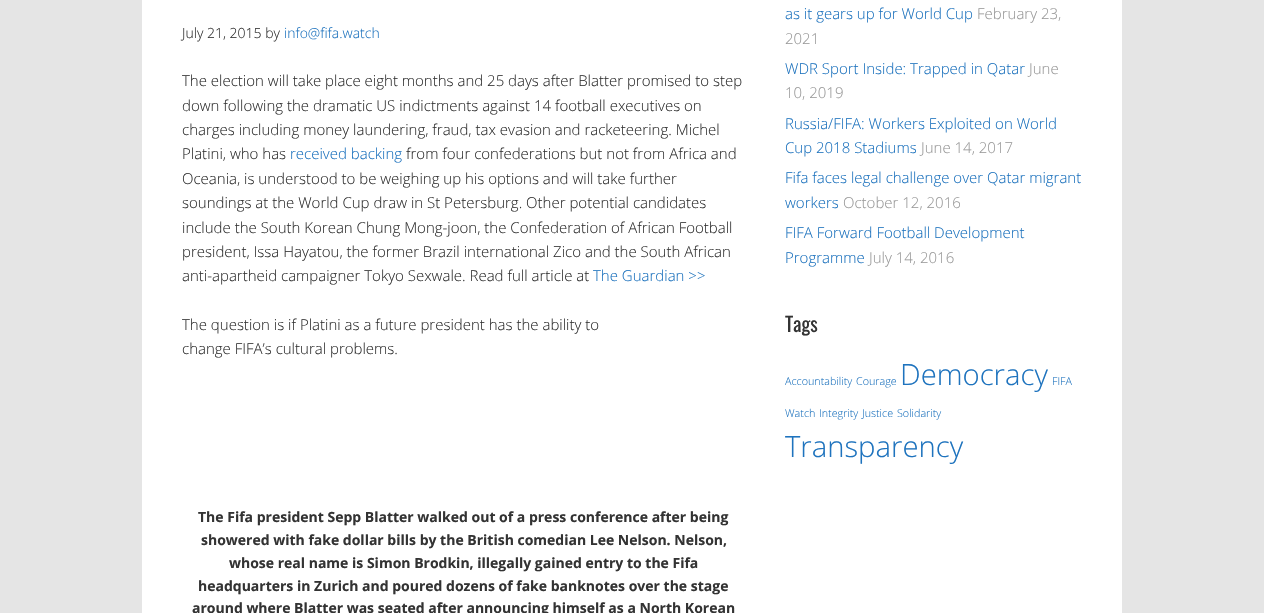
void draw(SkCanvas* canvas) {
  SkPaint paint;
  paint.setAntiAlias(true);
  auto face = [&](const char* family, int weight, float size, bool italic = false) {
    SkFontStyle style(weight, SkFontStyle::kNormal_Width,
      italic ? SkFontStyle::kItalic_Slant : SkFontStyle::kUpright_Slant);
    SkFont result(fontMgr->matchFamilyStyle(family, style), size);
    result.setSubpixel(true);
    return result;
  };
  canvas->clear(0xffe5e5e5);
  paint.setColor(0xffffffff);
  canvas->drawRect(SkRect::MakeXYWH(142, 0, 980, 613), paint);
  auto f0 = face("Open Sans", 300, 14);
  paint.setColor(0xff333333);
  canvas->drawString("July 21, 2015 by", 182, 38, f0, paint);
  paint.setColor(0xff1e73be);
  canvas->drawString("info@fifa.watch", 284, 38, f0, paint);
  auto f1 = face("Open Sans", 300, 15);
  paint.setColor(0xff333333);
  {
    const struct { const char* s; float x, y; } items[] = {
      {"The election will take place eight months and 25 days after Blatter promised to step", 182, 86},
      {"down following the dramatic US indictments against 14 football executives on", 182, 111},
      {"charges including money laundering, fraud, tax evasion and racketeering. Michel", 182, 135},
      {"Platini, who has", 182, 159},
    };
    for (auto [s, x, y] : items) {
      canvas->drawString(s, x, y, f1, paint);
    }
  }
  paint.setColor(0xff1e73be);
  canvas->drawString("received backing", 290, 159, f1, paint);
  paint.setColor(0xff333333);
  {
    const struct { const char* s; float x, y; } items[] = {
      {"from four confederations but not from Africa and", 406, 159},
      {"Oceania, is understood to be weighing up his options and will take further", 182, 184},
      {"soundings at the World Cup draw in St Petersburg. Other potential candidates", 182, 208},
      {"include the South Korean Chung Mong-joon, the Confederation of African Football", 182, 233},
      {"president, Issa Hayatou, the former Brazil international Zico and the South African", 182, 257},
      {"anti-apartheid campaigner Tokyo Sexwale. Read full article at", 182, 281},
    };
    for (auto [s, x, y] : items) {
      canvas->drawString(s, x, y, f1, paint);
    }
  }
  paint.setColor(0xff1e73be);
  canvas->drawString("The Guardian >>", 593, 281, f1, paint);
  paint.setColor(0xff333333);
  canvas->drawString("The question is if Platini as a future president has the ability to", 182, 330, f1, paint);
  canvas->drawString("change FIFA’s cultural problems.", 182, 354, f1, paint);
  auto f2 = face("Open Sans", 700, 14);
  {
    const struct { const char* s; float x, y; } items[] = {
      {"The Fifa president Sepp Blatter walked out of a press conference after being", 198, 522},
      {"showered with fake dollar bills by the British comedian Lee Nelson. Nelson,", 201, 545},
      {"whose real name is Simon Brodkin, illegally gained entry to the Fifa", 229, 568},
      {"headquarters in Zurich and poured dozens of fake banknotes over the stage", 198, 591},
      {"around where Blatter was seated after announcing himself as a North Korean", 192, 613},
    };
    for (auto [s, x, y] : items) {
      canvas->drawString(s, x, y, f2, paint);
    }
  }
  paint.setColor(0xff1e73be);
  canvas->drawString("as it gears up for World Cup", 785, 19, f1, paint);
  paint.setColor(0xff999999);
  canvas->drawString("February 23,", 977, 19, f1, paint);
  canvas->drawString("2021", 785, 44, f1, paint);
  paint.setColor(0xff1e73be);
  canvas->drawString("WDR Sport Inside: Trapped in Qatar", 785, 74, f1, paint);
  paint.setColor(0xff999999);
  canvas->drawString("June", 1029, 74, f1, paint);
  canvas->drawString("10, 2019", 785, 98, f1, paint);
  paint.setColor(0xff1e73be);
  canvas->drawString("Russia/FIFA: Workers Exploited on World", 785, 129, f1, paint);
  canvas->drawString("Cup 2018 Stadiums", 785, 153, f1, paint);
  paint.setColor(0xff999999);
  canvas->drawString("June 14, 2017", 921, 153, f1, paint);
  paint.setColor(0xff1e73be);
  canvas->drawString("Fifa faces legal challenge over Qatar migrant", 785, 183, f1, paint);
  canvas->drawString("workers", 785, 208, f1, paint);
  paint.setColor(0xff999999);
  canvas->drawString("October 12, 2016", 843, 208, f1, paint);
  paint.setColor(0xff1e73be);
  canvas->drawString("FIFA Forward Football Development", 785, 238, f1, paint);
  canvas->drawString("Programme", 785, 263, f1, paint);
  paint.setColor(0xff999999);
  canvas->drawString("July 14, 2016", 869, 263, f1, paint);
  auto f3 = face("Oswald", 400, 20);
  paint.setColor(0xff333333);
  canvas->drawString("Tags", 785, 332, f3, paint);
  auto f4 = face("Open Sans", 300, 10.75f);
  paint.setColor(0xff1e73be);
  canvas->drawString("Accountability", 785, 385, f4, paint);
  canvas->drawString("Courage", 856, 385, f4, paint);
  auto f5 = face("Open Sans", 300, 29.25f);
  canvas->drawString("Democracy", 900, 385, f5, paint);
  {
    const struct { const char* s; float x, y; } items[] = {
      {"FIFA", 1052, 385},
      {"Watch", 785, 417},
      {"Integrity", 819, 417},
      {"Justice", 862, 417},
      {"Solidarity", 897, 417},
    };
    for (auto [s, x, y] : items) {
      canvas->drawString(s, x, y, f4, paint);
    }
  }
  canvas->drawString("Transparency", 785, 457, f5, paint);
}
